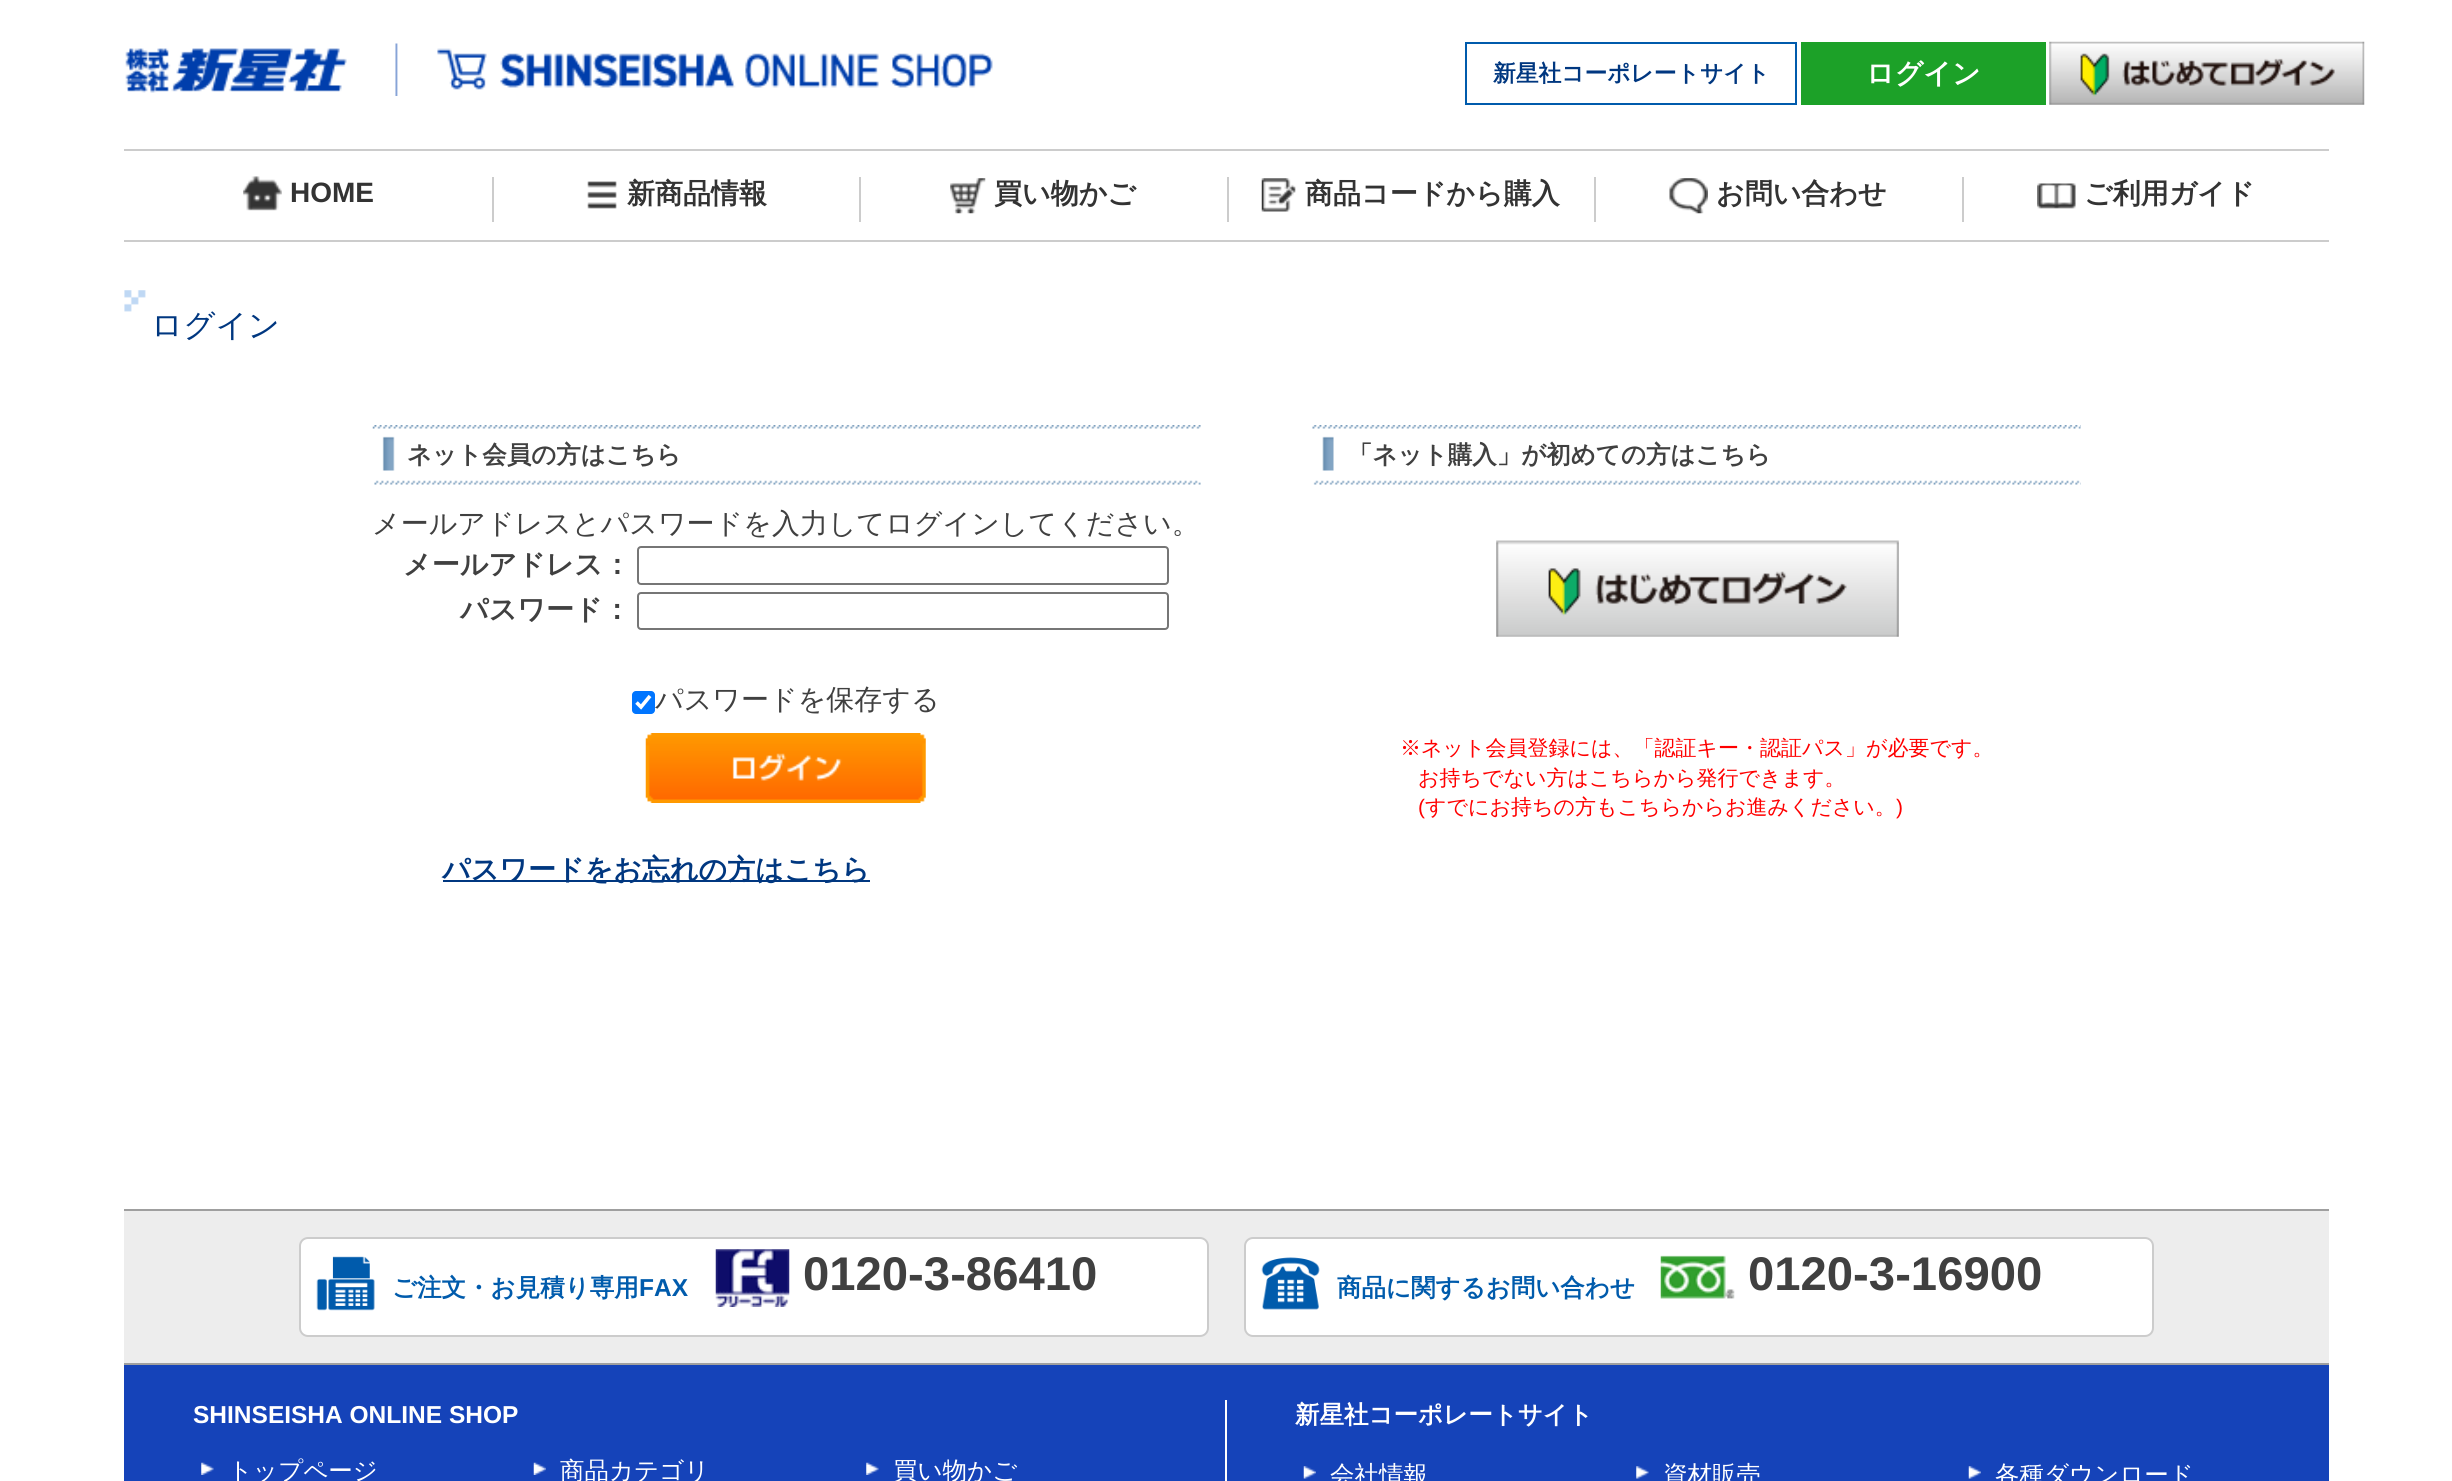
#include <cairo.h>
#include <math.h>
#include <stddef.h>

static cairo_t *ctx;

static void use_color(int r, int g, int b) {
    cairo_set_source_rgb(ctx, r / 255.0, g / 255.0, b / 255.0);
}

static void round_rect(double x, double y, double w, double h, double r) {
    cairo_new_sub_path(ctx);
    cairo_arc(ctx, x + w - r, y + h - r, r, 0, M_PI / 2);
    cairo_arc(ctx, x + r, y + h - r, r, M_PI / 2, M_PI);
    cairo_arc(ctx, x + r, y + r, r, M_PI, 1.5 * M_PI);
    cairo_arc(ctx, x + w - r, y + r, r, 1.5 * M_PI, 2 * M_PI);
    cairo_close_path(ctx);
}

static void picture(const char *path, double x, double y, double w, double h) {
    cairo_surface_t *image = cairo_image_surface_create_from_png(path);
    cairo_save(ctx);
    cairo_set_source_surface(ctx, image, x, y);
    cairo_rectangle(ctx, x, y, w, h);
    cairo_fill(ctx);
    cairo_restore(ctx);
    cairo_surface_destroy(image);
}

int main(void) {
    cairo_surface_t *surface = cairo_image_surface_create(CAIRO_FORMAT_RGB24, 2452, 1481);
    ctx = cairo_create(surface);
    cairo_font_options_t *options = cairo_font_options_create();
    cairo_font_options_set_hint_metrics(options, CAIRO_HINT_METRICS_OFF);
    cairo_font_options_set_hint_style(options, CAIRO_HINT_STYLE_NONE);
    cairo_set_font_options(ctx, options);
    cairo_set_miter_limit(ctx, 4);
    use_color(255, 255, 255);
    cairo_paint(ctx);
    picture("img1.png", 125, 43, 868, 53);
    cairo_rectangle(ctx, 1466, 43, 330, 61);
    use_color(0, 91, 172);
    cairo_stroke(ctx);
    cairo_select_font_face(ctx, "WenQuanYi Zen Hei", CAIRO_FONT_SLANT_NORMAL, CAIRO_FONT_WEIGHT_BOLD);
    cairo_set_font_size(ctx, 22.75);
    use_color(0, 55, 128);
    cairo_move_to(ctx, 1493, 81);
    cairo_show_text(ctx, "新星社コーポレートサイト");
    use_color(28, 161, 40);
    cairo_rectangle(ctx, 1801, 42, 245, 63);
    cairo_fill(ctx);
    cairo_set_font_size(ctx, 28);
    use_color(255, 255, 255);
    cairo_move_to(ctx, 1866, 83);
    cairo_show_text(ctx, "ログイン");
    picture("img2.png", 2049, 41, 316, 64);
    use_color(204, 204, 204);
    cairo_rectangle(ctx, 124, 149, 2205, 2);
    cairo_fill(ctx);
    cairo_rectangle(ctx, 124, 240, 2205, 2);
    cairo_fill(ctx);
    cairo_rectangle(ctx, 492, 177, 2, 45);
    cairo_fill(ctx);
    picture("img3.png", 243, 176, 39, 35);
    cairo_select_font_face(ctx, "Liberation Sans", CAIRO_FONT_SLANT_NORMAL, CAIRO_FONT_WEIGHT_BOLD);
    use_color(51, 51, 51);
    cairo_move_to(ctx, 290, 202);
    cairo_show_text(ctx, "HOME");
    use_color(204, 204, 204);
    cairo_rectangle(ctx, 859, 177, 2, 45);
    cairo_fill(ctx);
    picture("img4.png", 587, 181, 30, 28);
    cairo_select_font_face(ctx, "WenQuanYi Zen Hei", CAIRO_FONT_SLANT_NORMAL, CAIRO_FONT_WEIGHT_BOLD);
    use_color(51, 51, 51);
    cairo_move_to(ctx, 627, 203);
    cairo_show_text(ctx, "新商品情報");
    use_color(204, 204, 204);
    cairo_rectangle(ctx, 1227, 177, 2, 45);
    cairo_fill(ctx);
    picture("img5.png", 950, 178, 36, 36);
    use_color(51, 51, 51);
    cairo_move_to(ctx, 994, 203);
    cairo_show_text(ctx, "買い物かご");
    use_color(204, 204, 204);
    cairo_rectangle(ctx, 1594, 177, 2, 45);
    cairo_fill(ctx);
    picture("img6.png", 1261, 178, 35, 34);
    use_color(51, 51, 51);
    cairo_move_to(ctx, 1305, 203);
    cairo_show_text(ctx, "商品コードから購入");
    use_color(204, 204, 204);
    cairo_rectangle(ctx, 1962, 177, 2, 45);
    cairo_fill(ctx);
    picture("img7.png", 1669, 178, 39, 36);
    use_color(51, 51, 51);
    cairo_move_to(ctx, 1716, 203);
    cairo_show_text(ctx, "お問い合わせ");
    picture("img8.png", 2037, 183, 39, 26);
    cairo_move_to(ctx, 2084, 203);
    cairo_show_text(ctx, "ご利用ガイド");
    picture("img9.png", 124, 290, 22, 22);
    cairo_select_font_face(ctx, "WenQuanYi Zen Hei Medium", CAIRO_FONT_SLANT_NORMAL, CAIRO_FONT_WEIGHT_NORMAL);
    cairo_set_font_size(ctx, 31.5);
    use_color(0, 55, 128);
    cairo_move_to(ctx, 151, 336);
    cairo_show_text(ctx, "ログイン");
    picture("img10.png", 372, 425, 829, 60);
    cairo_select_font_face(ctx, "WenQuanYi Zen Hei", CAIRO_FONT_SLANT_NORMAL, CAIRO_FONT_WEIGHT_BOLD);
    cairo_set_font_size(ctx, 24.5);
    use_color(64, 64, 64);
    cairo_move_to(ctx, 407, 463);
    cairo_show_text(ctx, "ネット会員の方はこちら");
    cairo_select_font_face(ctx, "WenQuanYi Zen Hei Medium", CAIRO_FONT_SLANT_NORMAL, CAIRO_FONT_WEIGHT_NORMAL);
    cairo_set_font_size(ctx, 28);
    cairo_move_to(ctx, 372, 533);
    cairo_show_text(ctx, "メールアドレスとパスワードを入力してログインしてください。");
    cairo_select_font_face(ctx, "WenQuanYi Zen Hei", CAIRO_FONT_SLANT_NORMAL, CAIRO_FONT_WEIGHT_BOLD);
    cairo_move_to(ctx, 403, 574);
    cairo_show_text(ctx, "メールアドレス：");
    round_rect(638, 547, 530, 37, 3);
    use_color(118, 118, 118);
    cairo_stroke(ctx);
    use_color(64, 64, 64);
    cairo_move_to(ctx, 460, 619);
    cairo_show_text(ctx, "パスワード：");
    round_rect(638, 593, 530, 36, 3);
    use_color(118, 118, 118);
    cairo_stroke(ctx);
    use_color(0, 117, 255);
    round_rect(632, 691, 23, 23, 4);
    cairo_fill(ctx);
    cairo_new_path(ctx);
    cairo_move_to(ctx, 636.5, 702.5);
    cairo_line_to(ctx, 641, 707);
    cairo_line_to(ctx, 650, 696);
    use_color(255, 255, 255);
    cairo_set_line_width(ctx, 3.6);
    cairo_stroke(ctx);
    cairo_select_font_face(ctx, "WenQuanYi Zen Hei Medium", CAIRO_FONT_SLANT_NORMAL, CAIRO_FONT_WEIGHT_NORMAL);
    use_color(64, 64, 64);
    cairo_move_to(ctx, 655, 709);
    cairo_show_text(ctx, "パスワードを保存する");
    picture("img11.png", 645, 733, 281, 70);
    use_color(0, 55, 128);
    cairo_rectangle(ctx, 443, 880, 427, 2);
    cairo_fill(ctx);
    cairo_select_font_face(ctx, "WenQuanYi Zen Hei", CAIRO_FONT_SLANT_NORMAL, CAIRO_FONT_WEIGHT_BOLD);
    cairo_move_to(ctx, 442, 879);
    cairo_show_text(ctx, "パスワードをお忘れの方はこちら");
    picture("img12.png", 1312, 425, 769, 60);
    cairo_set_font_size(ctx, 24.5);
    use_color(64, 64, 64);
    cairo_move_to(ctx, 1348, 463);
    cairo_show_text(ctx, "「ネット購入」が初めての方はこちら");
    picture("img13.png", 1496, 540, 403, 97);
    cairo_select_font_face(ctx, "WenQuanYi Zen Hei Medium", CAIRO_FONT_SLANT_NORMAL, CAIRO_FONT_WEIGHT_NORMAL);
    cairo_set_font_size(ctx, 21);
    use_color(255, 0, 0);
    cairo_move_to(ctx, 1400, 755);
    cairo_show_text(ctx, "※ネット会員登録には、「認証キー・認証パス」が必要です。");
    cairo_move_to(ctx, 1418, 785);
    cairo_show_text(ctx, "お持ちでない方はこちらから発行できます。");
    cairo_select_font_face(ctx, "Liberation Sans", CAIRO_FONT_SLANT_NORMAL, CAIRO_FONT_WEIGHT_NORMAL);
    cairo_move_to(ctx, 1418, 814);
    cairo_show_text(ctx, "(");
    cairo_select_font_face(ctx, "WenQuanYi Zen Hei Medium", CAIRO_FONT_SLANT_NORMAL, CAIRO_FONT_WEIGHT_NORMAL);
    cairo_move_to(ctx, 1425, 814);
    cairo_show_text(ctx, "すでにお持ちの方もこちらからお進みください。");
    cairo_select_font_face(ctx, "Liberation Sans", CAIRO_FONT_SLANT_NORMAL, CAIRO_FONT_WEIGHT_NORMAL);
    cairo_move_to(ctx, 1896, 814);
    cairo_show_text(ctx, ")");
    use_color(237, 237, 237);
    cairo_rectangle(ctx, 124, 1211, 2205, 152);
    cairo_fill(ctx);
    use_color(159, 159, 159);
    cairo_rectangle(ctx, 124, 1209, 2205, 2);
    cairo_fill(ctx);
    cairo_rectangle(ctx, 124, 1363, 2205, 2);
    cairo_fill(ctx);
    use_color(255, 255, 255);
    round_rect(300, 1238, 908, 98, 8);
    cairo_fill_preserve(ctx);
    use_color(204, 204, 204);
    cairo_set_line_width(ctx, 2);
    cairo_stroke(ctx);
    picture("img14.png", 316, 1256, 59, 55);
    cairo_select_font_face(ctx, "WenQuanYi Zen Hei", CAIRO_FONT_SLANT_NORMAL, CAIRO_FONT_WEIGHT_BOLD);
    cairo_set_font_size(ctx, 24.5);
    use_color(0, 91, 172);
    cairo_move_to(ctx, 392, 1296);
    cairo_show_text(ctx, "ご注文・お見積り専用");
    cairo_select_font_face(ctx, "Liberation Sans", CAIRO_FONT_SLANT_NORMAL, CAIRO_FONT_WEIGHT_BOLD);
    cairo_move_to(ctx, 639, 1296);
    cairo_show_text(ctx, "FAX");
    picture("img15.png", 715, 1249, 75, 58);
    cairo_set_font_size(ctx, 47.25);
    use_color(64, 64, 64);
    cairo_move_to(ctx, 803, 1290);
    cairo_show_text(ctx, "0120-3-86410");
    use_color(255, 255, 255);
    round_rect(1245, 1238, 908, 98, 8);
    cairo_fill_preserve(ctx);
    use_color(204, 204, 204);
    cairo_stroke(ctx);
    picture("img16.png", 1261, 1257, 59, 53);
    cairo_select_font_face(ctx, "WenQuanYi Zen Hei", CAIRO_FONT_SLANT_NORMAL, CAIRO_FONT_WEIGHT_BOLD);
    cairo_set_font_size(ctx, 24.5);
    use_color(0, 91, 172);
    cairo_move_to(ctx, 1337, 1296);
    cairo_show_text(ctx, "商品に関するお問い合わせ");
    picture("img17.png", 1660, 1255, 75, 44);
    cairo_select_font_face(ctx, "Liberation Sans", CAIRO_FONT_SLANT_NORMAL, CAIRO_FONT_WEIGHT_BOLD);
    cairo_set_font_size(ctx, 47.25);
    use_color(64, 64, 64);
    cairo_move_to(ctx, 1748, 1290);
    cairo_show_text(ctx, "0120-3-16900");
    use_color(21, 67, 185);
    cairo_rectangle(ctx, 124, 1365, 2205, 116);
    cairo_fill(ctx);
    cairo_set_font_size(ctx, 24.5);
    use_color(255, 255, 255);
    cairo_move_to(ctx, 193, 1423);
    cairo_show_text(ctx, "SHINSEISHA ONLINE SHOP");
    picture("img18.png", 201, 1462, 13, 13);
    cairo_select_font_face(ctx, "WenQuanYi Zen Hei Medium", CAIRO_FONT_SLANT_NORMAL, CAIRO_FONT_WEIGHT_NORMAL);
    cairo_move_to(ctx, 228, 1479);
    cairo_show_text(ctx, "トップページ");
    picture("img19.png", 533, 1462, 13, 13);
    cairo_move_to(ctx, 560, 1479);
    cairo_show_text(ctx, "商品カテゴリ");
    picture("img18.png", 866, 1462, 13, 13);
    cairo_move_to(ctx, 893, 1479);
    cairo_show_text(ctx, "買い物かご");
    cairo_rectangle(ctx, 1225, 1400, 2, 81);
    cairo_fill(ctx);
    cairo_select_font_face(ctx, "WenQuanYi Zen Hei", CAIRO_FONT_SLANT_NORMAL, CAIRO_FONT_WEIGHT_BOLD);
    cairo_move_to(ctx, 1295, 1423);
    cairo_show_text(ctx, "新星社コーポレートサイト");
    picture("img20.png", 1303, 1466, 13, 13);
    cairo_select_font_face(ctx, "WenQuanYi Zen Hei Medium", CAIRO_FONT_SLANT_NORMAL, CAIRO_FONT_WEIGHT_NORMAL);
    cairo_move_to(ctx, 1330, 1483);
    cairo_show_text(ctx, "会社情報");
    picture("img21.png", 1636, 1466, 13, 13);
    cairo_move_to(ctx, 1663, 1483);
    cairo_show_text(ctx, "資材販売");
    picture("img22.png", 1968, 1466, 13, 13);
    cairo_move_to(ctx, 1995, 1483);
    cairo_show_text(ctx, "各種ダウンロード");
    cairo_surface_write_to_png(surface, "result.png");
    cairo_font_options_destroy(options);
    cairo_destroy(ctx);
    cairo_surface_destroy(surface);
    return 0;
}
